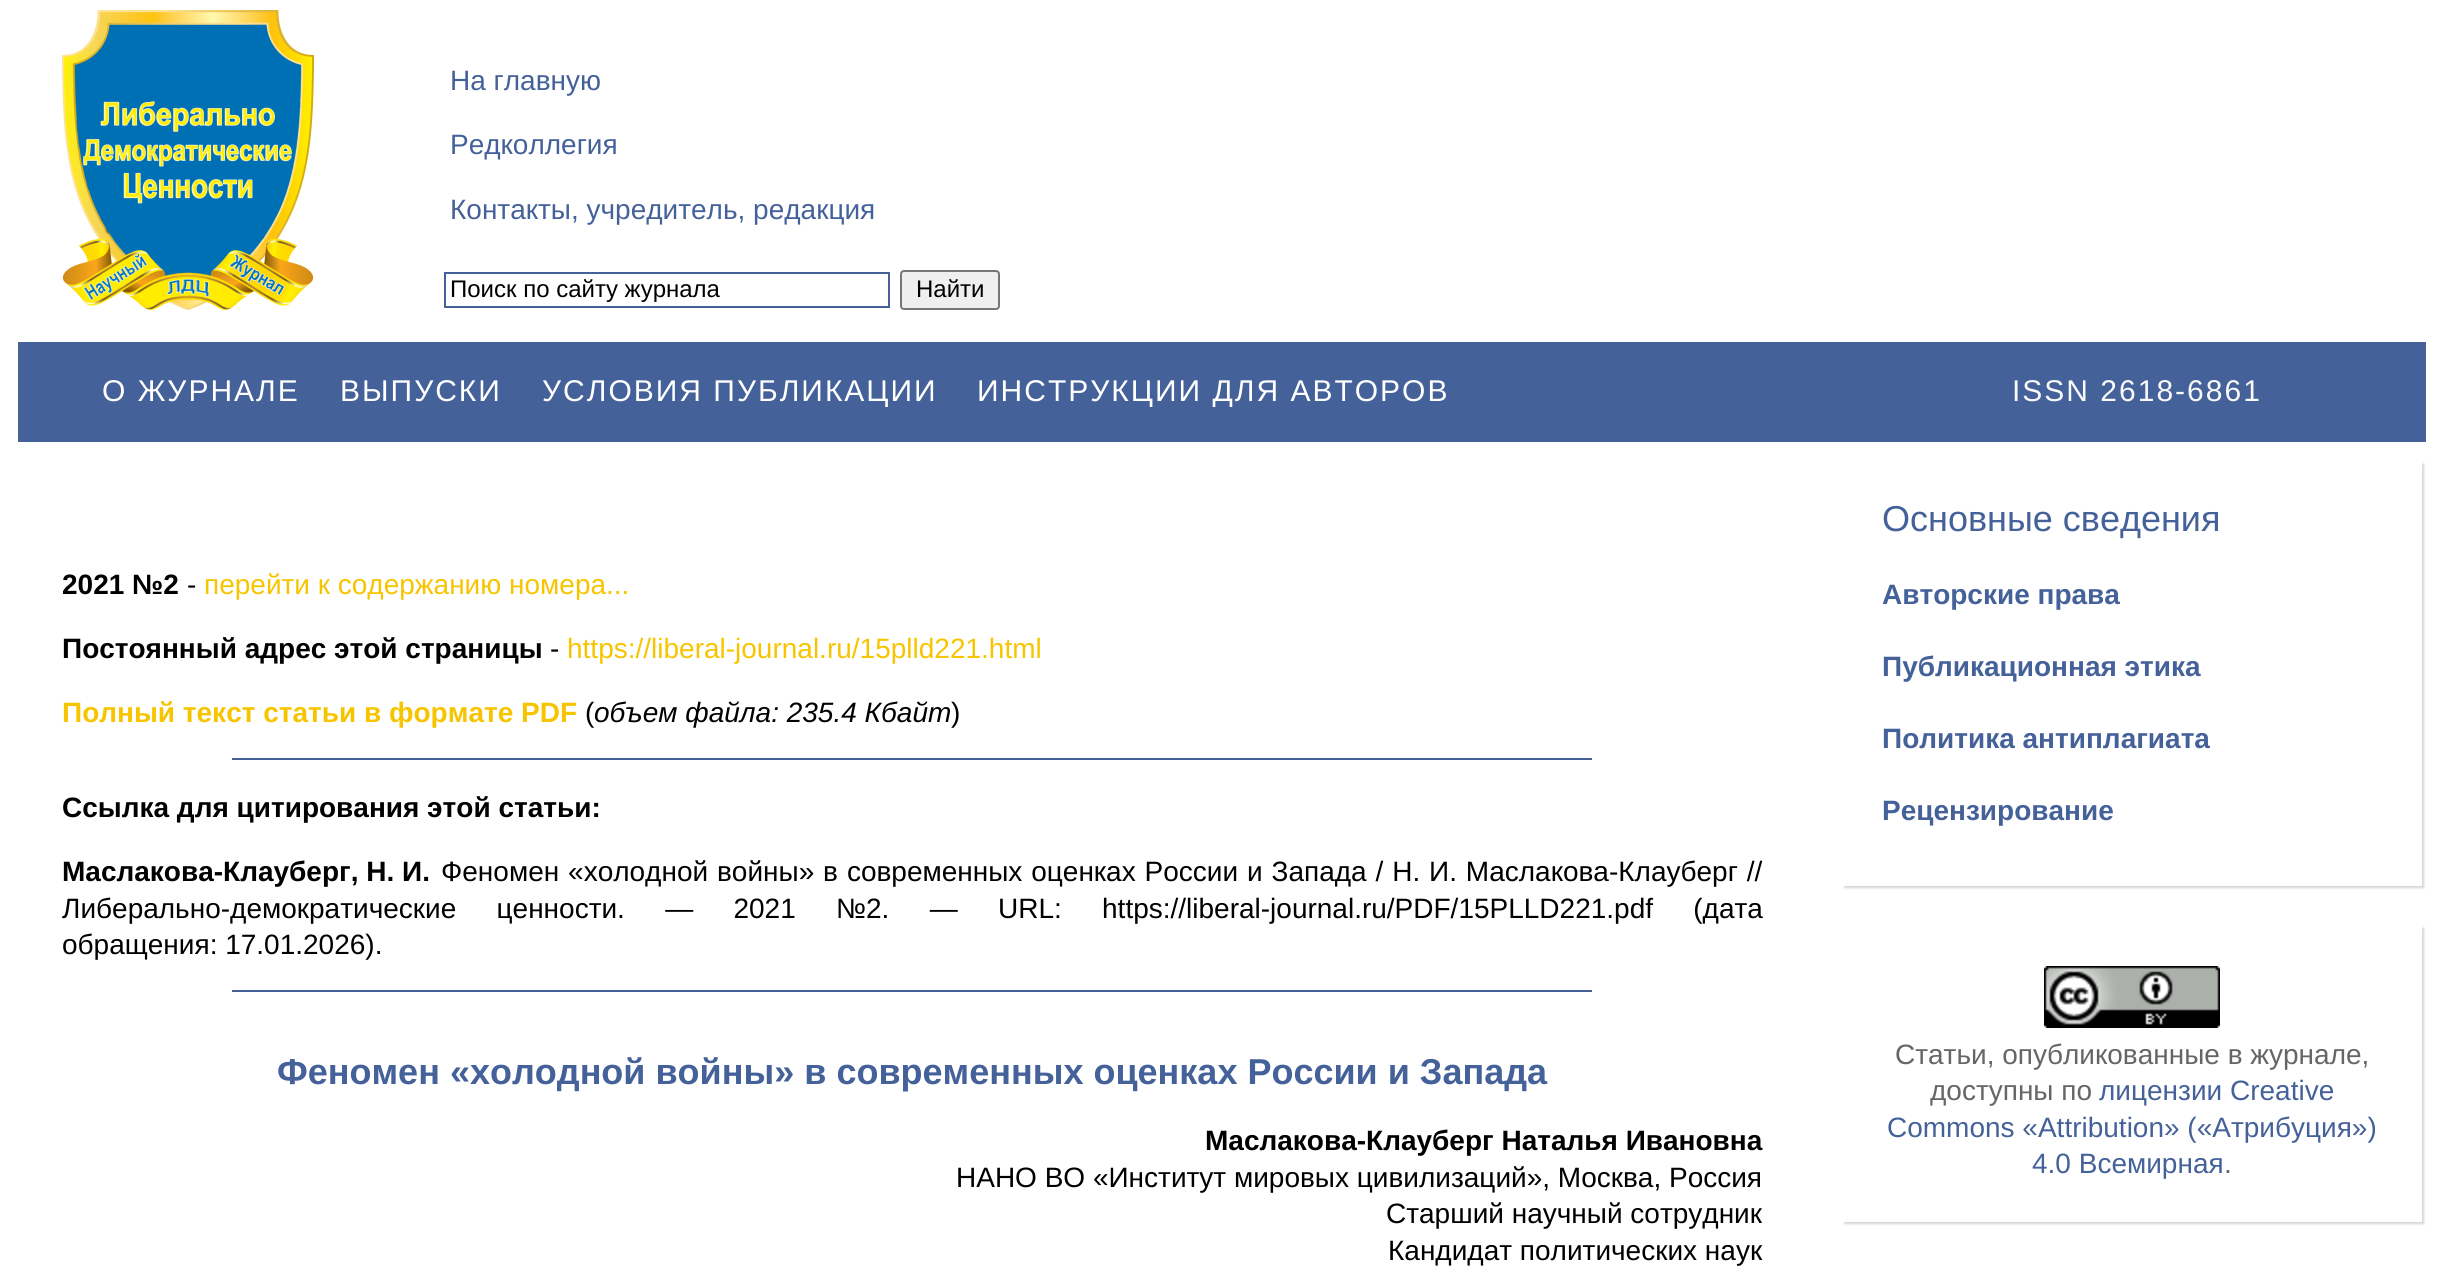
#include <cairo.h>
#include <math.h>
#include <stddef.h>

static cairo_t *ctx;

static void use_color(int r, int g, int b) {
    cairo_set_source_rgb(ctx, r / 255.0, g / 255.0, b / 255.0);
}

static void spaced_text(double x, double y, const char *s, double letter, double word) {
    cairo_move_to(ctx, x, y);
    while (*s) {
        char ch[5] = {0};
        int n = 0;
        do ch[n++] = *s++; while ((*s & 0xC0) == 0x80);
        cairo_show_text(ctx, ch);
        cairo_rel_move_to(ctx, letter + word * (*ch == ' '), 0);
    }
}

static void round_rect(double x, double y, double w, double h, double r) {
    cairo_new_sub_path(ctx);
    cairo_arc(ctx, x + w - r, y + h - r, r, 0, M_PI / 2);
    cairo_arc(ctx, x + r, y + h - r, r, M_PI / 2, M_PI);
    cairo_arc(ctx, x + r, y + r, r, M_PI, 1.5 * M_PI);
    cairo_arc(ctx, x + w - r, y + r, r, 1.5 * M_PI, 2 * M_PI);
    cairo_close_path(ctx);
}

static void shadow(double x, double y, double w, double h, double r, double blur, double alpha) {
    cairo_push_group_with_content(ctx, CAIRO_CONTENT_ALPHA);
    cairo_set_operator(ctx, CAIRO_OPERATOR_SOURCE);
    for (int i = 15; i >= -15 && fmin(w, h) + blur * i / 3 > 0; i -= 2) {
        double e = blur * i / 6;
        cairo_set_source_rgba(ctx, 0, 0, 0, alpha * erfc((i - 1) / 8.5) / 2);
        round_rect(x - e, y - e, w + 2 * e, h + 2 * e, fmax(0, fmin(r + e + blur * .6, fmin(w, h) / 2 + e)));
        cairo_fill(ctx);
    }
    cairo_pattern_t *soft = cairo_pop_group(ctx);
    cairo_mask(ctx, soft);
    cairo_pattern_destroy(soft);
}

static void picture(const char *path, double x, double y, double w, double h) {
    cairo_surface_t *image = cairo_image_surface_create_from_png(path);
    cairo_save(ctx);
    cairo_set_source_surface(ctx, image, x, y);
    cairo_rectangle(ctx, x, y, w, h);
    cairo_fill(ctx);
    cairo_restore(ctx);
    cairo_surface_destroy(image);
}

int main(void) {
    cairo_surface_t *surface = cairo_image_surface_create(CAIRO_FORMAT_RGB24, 2444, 1287);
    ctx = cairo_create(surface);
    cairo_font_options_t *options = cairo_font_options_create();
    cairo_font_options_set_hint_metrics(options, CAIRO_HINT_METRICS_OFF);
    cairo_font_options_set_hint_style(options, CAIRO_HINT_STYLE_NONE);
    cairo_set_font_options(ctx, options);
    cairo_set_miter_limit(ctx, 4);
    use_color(255, 255, 255);
    cairo_paint(ctx);
    picture("img1.png", 62, 10, 252, 300);
    cairo_select_font_face(ctx, "Liberation Sans", CAIRO_FONT_SLANT_NORMAL, CAIRO_FONT_WEIGHT_NORMAL);
    cairo_set_font_size(ctx, 28);
    use_color(69, 97, 154);
    cairo_move_to(ctx, 450, 90);
    cairo_show_text(ctx, "На главную");
    cairo_move_to(ctx, 450, 154);
    cairo_show_text(ctx, "Редколлегия");
    cairo_move_to(ctx, 450, 219);
    cairo_show_text(ctx, "Контакты, учредитель, редакция");
    cairo_rectangle(ctx, 445, 273, 444, 34);
    cairo_stroke(ctx);
    cairo_set_font_size(ctx, 24);
    use_color(0, 0, 0);
    cairo_move_to(ctx, 450, 297);
    cairo_show_text(ctx, "Поиск по сайту журнала");
    use_color(239, 239, 239);
    round_rect(901, 271, 98, 38, 3);
    cairo_fill_preserve(ctx);
    use_color(118, 118, 118);
    cairo_stroke(ctx);
    use_color(0, 0, 0);
    cairo_move_to(ctx, 916, 297);
    cairo_show_text(ctx, "Найти");
    use_color(69, 97, 154);
    cairo_rectangle(ctx, 18, 342, 2408, 100);
    cairo_fill(ctx);
    cairo_set_font_size(ctx, 30);
    use_color(255, 255, 255);
    spaced_text(102, 401, "О ЖУРНАЛЕ", 2, 0);
    spaced_text(340, 401, "ВЫПУСКИ", 2, 0);
    spaced_text(542, 401, "УСЛОВИЯ ПУБЛИКАЦИИ", 2, 0);
    spaced_text(977, 401, "ИНСТРУКЦИИ ДЛЯ АВТОРОВ", 2, 0);
    use_color(249, 249, 249);
    spaced_text(2012, 401, "ISSN 2618-6861", 2, 0);
    cairo_select_font_face(ctx, "Liberation Sans", CAIRO_FONT_SLANT_NORMAL, CAIRO_FONT_WEIGHT_BOLD);
    cairo_set_font_size(ctx, 28);
    use_color(0, 0, 0);
    cairo_move_to(ctx, 62, 594);
    cairo_show_text(ctx, "2021 №2");
    cairo_select_font_face(ctx, "Liberation Sans", CAIRO_FONT_SLANT_NORMAL, CAIRO_FONT_WEIGHT_NORMAL);
    cairo_move_to(ctx, 187, 594);
    cairo_show_text(ctx, "-");
    use_color(247, 197, 0);
    cairo_move_to(ctx, 204, 594);
    cairo_show_text(ctx, "перейти к содержанию номера...");
    cairo_select_font_face(ctx, "Liberation Sans", CAIRO_FONT_SLANT_NORMAL, CAIRO_FONT_WEIGHT_BOLD);
    use_color(0, 0, 0);
    cairo_move_to(ctx, 62, 658);
    cairo_show_text(ctx, "Постоянный адрес этой страницы");
    cairo_select_font_face(ctx, "Liberation Sans", CAIRO_FONT_SLANT_NORMAL, CAIRO_FONT_WEIGHT_NORMAL);
    cairo_move_to(ctx, 550, 658);
    cairo_show_text(ctx, "-");
    use_color(247, 197, 0);
    cairo_move_to(ctx, 567, 658);
    cairo_show_text(ctx, "https://liberal-journal.ru/15plld221.html");
    cairo_select_font_face(ctx, "Liberation Sans", CAIRO_FONT_SLANT_NORMAL, CAIRO_FONT_WEIGHT_BOLD);
    cairo_move_to(ctx, 62, 722);
    cairo_show_text(ctx, "Полный текст статьи в формате PDF");
    cairo_select_font_face(ctx, "Liberation Sans", CAIRO_FONT_SLANT_NORMAL, CAIRO_FONT_WEIGHT_NORMAL);
    use_color(0, 0, 0);
    cairo_move_to(ctx, 585, 722);
    cairo_show_text(ctx, "(");
    cairo_select_font_face(ctx, "Liberation Sans", CAIRO_FONT_SLANT_ITALIC, CAIRO_FONT_WEIGHT_NORMAL);
    cairo_move_to(ctx, 594, 722);
    cairo_show_text(ctx, "объем файла: 235.4 Кбайт");
    cairo_select_font_face(ctx, "Liberation Sans", CAIRO_FONT_SLANT_NORMAL, CAIRO_FONT_WEIGHT_NORMAL);
    cairo_move_to(ctx, 951, 722);
    cairo_show_text(ctx, ")");
    use_color(69, 97, 154);
    cairo_rectangle(ctx, 232, 758, 1360, 2);
    cairo_fill(ctx);
    cairo_select_font_face(ctx, "Liberation Sans", CAIRO_FONT_SLANT_NORMAL, CAIRO_FONT_WEIGHT_BOLD);
    use_color(0, 0, 0);
    cairo_move_to(ctx, 62, 817);
    cairo_show_text(ctx, "Ссылка для цитирования этой статьи:");
    cairo_move_to(ctx, 62, 881);
    cairo_show_text(ctx, "Маслакова-Клауберг, Н. И.");
    cairo_select_font_face(ctx, "Liberation Sans", CAIRO_FONT_SLANT_NORMAL, CAIRO_FONT_WEIGHT_NORMAL);
    spaced_text(441, 881, "Феномен «холодной войны» в современных оценках России и Запада / Н. И. Маслакова-Клауберг //", 0, 1.1);
    spaced_text(62, 918, "Либерально-демократические ценности. — 2021 №2. — URL: https://liberal-journal.ru/PDF/15PLLD221.pdf (дата", 0, 32.5);
    cairo_move_to(ctx, 62, 954);
    cairo_show_text(ctx, "обращения: 17.01.2026).");
    use_color(69, 97, 154);
    cairo_rectangle(ctx, 232, 990, 1360, 2);
    cairo_fill(ctx);
    cairo_select_font_face(ctx, "Liberation Sans", CAIRO_FONT_SLANT_NORMAL, CAIRO_FONT_WEIGHT_BOLD);
    cairo_set_font_size(ctx, 36);
    cairo_move_to(ctx, 277, 1084);
    cairo_show_text(ctx, "Феномен «холодной войны» в современных оценках России и Запада");
    cairo_set_font_size(ctx, 28);
    use_color(0, 0, 0);
    cairo_move_to(ctx, 1205, 1150);
    cairo_show_text(ctx, "Маслакова-Клауберг Наталья Ивановна");
    cairo_select_font_face(ctx, "Liberation Sans", CAIRO_FONT_SLANT_NORMAL, CAIRO_FONT_WEIGHT_NORMAL);
    cairo_move_to(ctx, 956, 1187);
    cairo_show_text(ctx, "НАНО ВО «Институт мировых цивилизаций», Москва, Россия");
    cairo_move_to(ctx, 1386, 1223);
    cairo_show_text(ctx, "Старший научный сотрудник");
    cairo_move_to(ctx, 1388, 1260);
    cairo_show_text(ctx, "Кандидат политических наук");
    cairo_save(ctx);
    cairo_set_fill_rule(ctx, CAIRO_FILL_RULE_EVEN_ODD);
    cairo_new_path(ctx);
    cairo_move_to(ctx, 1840, 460);
    cairo_line_to(ctx, 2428, 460);
    cairo_line_to(ctx, 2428, 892);
    cairo_line_to(ctx, 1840, 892);
    cairo_close_path(ctx);
    cairo_move_to(ctx, 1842, 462);
    cairo_line_to(ctx, 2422, 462);
    cairo_line_to(ctx, 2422, 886);
    cairo_line_to(ctx, 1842, 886);
    cairo_close_path(ctx);
    cairo_clip(ctx);
    use_color(214, 214, 214);
    shadow(1844, 464, 580, 424, 0, 1, 1);
    cairo_restore(ctx);
    cairo_set_font_size(ctx, 36);
    use_color(69, 97, 154);
    cairo_move_to(ctx, 1882, 531);
    cairo_show_text(ctx, "Основные сведения");
    cairo_select_font_face(ctx, "Liberation Sans", CAIRO_FONT_SLANT_NORMAL, CAIRO_FONT_WEIGHT_BOLD);
    cairo_set_font_size(ctx, 28);
    cairo_move_to(ctx, 1882, 604);
    cairo_show_text(ctx, "Авторские права");
    cairo_move_to(ctx, 1882, 676);
    cairo_show_text(ctx, "Публикационная этика");
    cairo_move_to(ctx, 1882, 748);
    cairo_show_text(ctx, "Политика антиплагиата");
    cairo_move_to(ctx, 1882, 820);
    cairo_show_text(ctx, "Рецензирование");
    cairo_save(ctx);
    cairo_set_fill_rule(ctx, CAIRO_FILL_RULE_EVEN_ODD);
    cairo_new_path(ctx);
    cairo_move_to(ctx, 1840, 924);
    cairo_line_to(ctx, 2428, 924);
    cairo_line_to(ctx, 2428, 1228);
    cairo_line_to(ctx, 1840, 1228);
    cairo_close_path(ctx);
    cairo_move_to(ctx, 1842, 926);
    cairo_line_to(ctx, 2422, 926);
    cairo_line_to(ctx, 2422, 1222);
    cairo_line_to(ctx, 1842, 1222);
    cairo_close_path(ctx);
    cairo_clip(ctx);
    use_color(214, 214, 214);
    shadow(1844, 928, 580, 296, 0, 1, 1);
    cairo_restore(ctx);
    picture("img2.png", 2044, 966, 176, 62);
    cairo_select_font_face(ctx, "Liberation Sans", CAIRO_FONT_SLANT_NORMAL, CAIRO_FONT_WEIGHT_NORMAL);
    use_color(102, 102, 102);
    cairo_move_to(ctx, 1895, 1064);
    cairo_show_text(ctx, "Статьи, опубликованные в журнале,");
    cairo_move_to(ctx, 1930, 1100);
    cairo_show_text(ctx, "доступны по");
    use_color(69, 97, 154);
    cairo_move_to(ctx, 2099, 1100);
    cairo_show_text(ctx, "лицензии Creative");
    cairo_move_to(ctx, 1887, 1137);
    cairo_show_text(ctx, "Commons «Attribution» («Атрибуция»)");
    cairo_move_to(ctx, 2032, 1173);
    cairo_show_text(ctx, "4.0 Всемирная");
    use_color(102, 102, 102);
    cairo_move_to(ctx, 2224, 1173);
    cairo_show_text(ctx, ".");
    cairo_surface_write_to_png(surface, "result.png");
    cairo_font_options_destroy(options);
    cairo_destroy(ctx);
    cairo_surface_destroy(surface);
    return 0;
}
